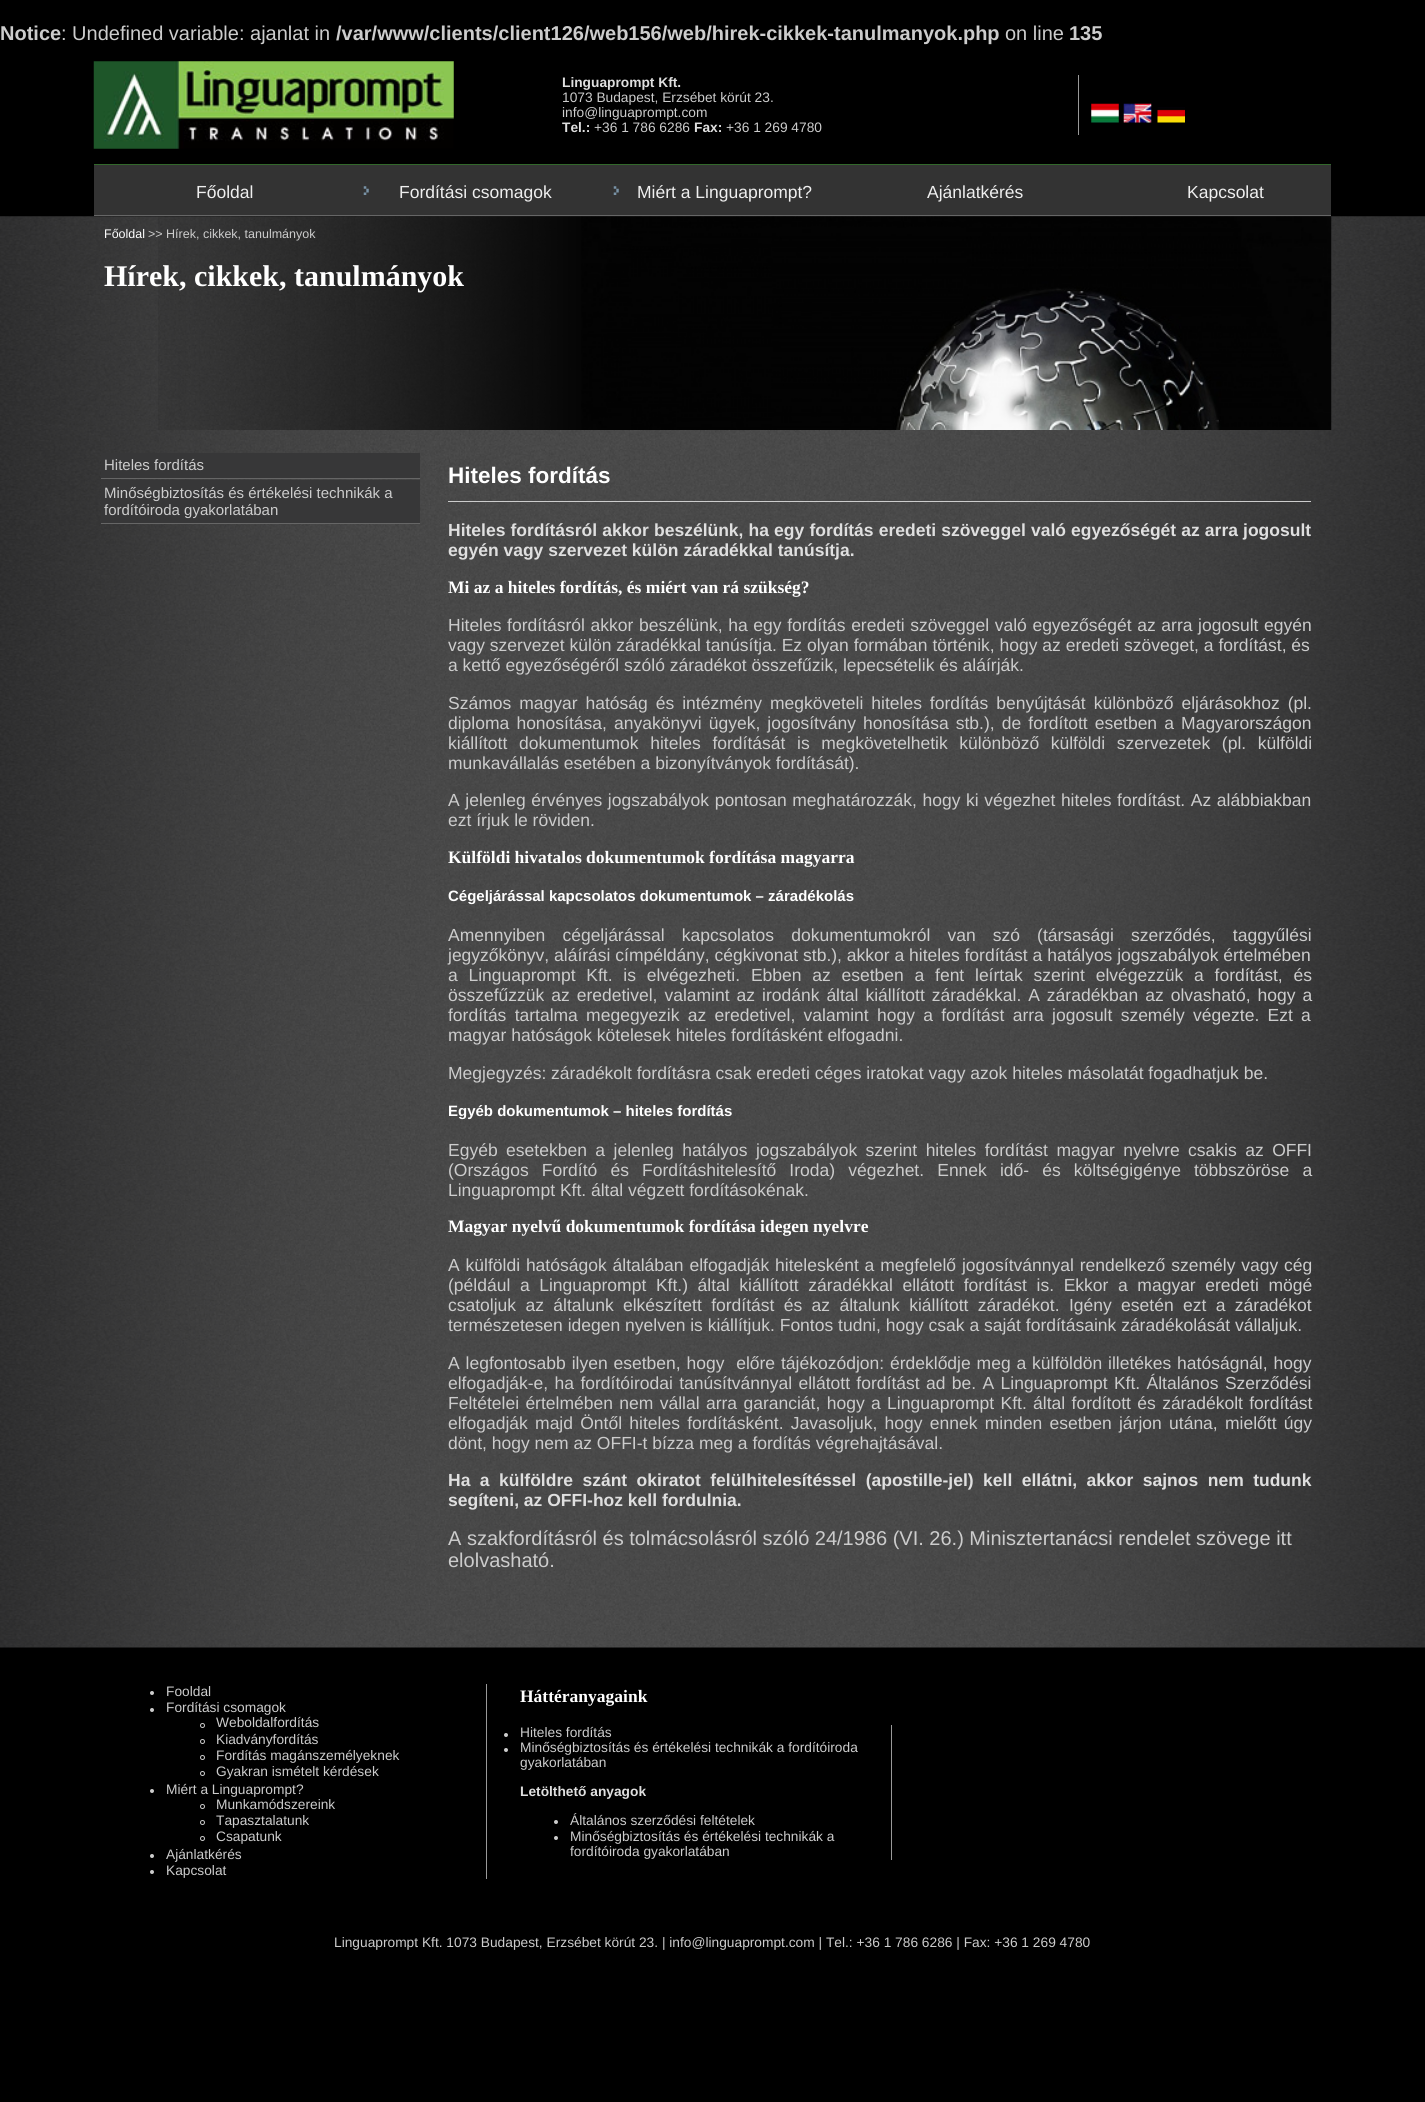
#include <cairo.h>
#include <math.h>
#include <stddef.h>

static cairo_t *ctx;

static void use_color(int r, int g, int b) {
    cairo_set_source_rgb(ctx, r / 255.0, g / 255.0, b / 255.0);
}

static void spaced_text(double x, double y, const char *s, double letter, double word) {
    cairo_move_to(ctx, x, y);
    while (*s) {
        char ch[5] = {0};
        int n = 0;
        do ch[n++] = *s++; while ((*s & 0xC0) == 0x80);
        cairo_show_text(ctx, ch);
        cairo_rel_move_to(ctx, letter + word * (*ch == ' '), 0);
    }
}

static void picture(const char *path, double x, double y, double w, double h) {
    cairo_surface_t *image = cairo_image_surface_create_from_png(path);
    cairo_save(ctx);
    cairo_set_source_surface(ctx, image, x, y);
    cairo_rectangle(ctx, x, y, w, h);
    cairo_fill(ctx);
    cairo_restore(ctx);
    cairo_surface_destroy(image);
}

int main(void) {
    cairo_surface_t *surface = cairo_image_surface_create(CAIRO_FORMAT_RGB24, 1425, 2102);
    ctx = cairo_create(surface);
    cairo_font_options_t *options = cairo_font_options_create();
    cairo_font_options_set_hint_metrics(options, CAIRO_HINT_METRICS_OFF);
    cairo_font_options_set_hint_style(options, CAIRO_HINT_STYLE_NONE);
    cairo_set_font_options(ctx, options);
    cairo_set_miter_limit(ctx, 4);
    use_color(0, 0, 0);
    cairo_paint(ctx);
    cairo_select_font_face(ctx, "Liberation Sans", CAIRO_FONT_SLANT_NORMAL, CAIRO_FONT_WEIGHT_BOLD);
    cairo_set_font_size(ctx, 20);
    use_color(204, 204, 204);
    cairo_move_to(ctx, 0, 40);
    cairo_show_text(ctx, "Notice");
    cairo_select_font_face(ctx, "Liberation Sans", CAIRO_FONT_SLANT_NORMAL, CAIRO_FONT_WEIGHT_NORMAL);
    cairo_move_to(ctx, 61, 40);
    cairo_show_text(ctx, ": Undefined variable: ajanlat in");
    cairo_select_font_face(ctx, "Liberation Sans", CAIRO_FONT_SLANT_NORMAL, CAIRO_FONT_WEIGHT_BOLD);
    cairo_move_to(ctx, 336, 40);
    cairo_show_text(ctx, "/var/www/clients/client126/web156/web/hirek-cikkek-tanulmanyok.php");
    cairo_select_font_face(ctx, "Liberation Sans", CAIRO_FONT_SLANT_NORMAL, CAIRO_FONT_WEIGHT_NORMAL);
    cairo_move_to(ctx, 1005, 40);
    cairo_show_text(ctx, "on line");
    cairo_select_font_face(ctx, "Liberation Sans", CAIRO_FONT_SLANT_NORMAL, CAIRO_FONT_WEIGHT_BOLD);
    cairo_move_to(ctx, 1069, 40);
    cairo_show_text(ctx, "135");
    picture("img1.png", 93, 61, 361, 88);
    use_color(153, 153, 153);
    cairo_rectangle(ctx, 1078, 75, 1, 60);
    cairo_fill(ctx);
    cairo_set_font_size(ctx, 13.75);
    use_color(223, 223, 223);
    cairo_move_to(ctx, 562, 87);
    cairo_show_text(ctx, "Linguaprompt Kft.");
    cairo_select_font_face(ctx, "Liberation Sans", CAIRO_FONT_SLANT_NORMAL, CAIRO_FONT_WEIGHT_NORMAL);
    use_color(204, 204, 204);
    cairo_move_to(ctx, 562, 102);
    cairo_show_text(ctx, "1073 Budapest, Erzsébet körút 23.");
    cairo_move_to(ctx, 562, 117);
    cairo_show_text(ctx, "info@linguaprompt.com");
    cairo_select_font_face(ctx, "Liberation Sans", CAIRO_FONT_SLANT_NORMAL, CAIRO_FONT_WEIGHT_BOLD);
    use_color(223, 223, 223);
    cairo_move_to(ctx, 562, 132);
    cairo_show_text(ctx, "Tel.:");
    cairo_select_font_face(ctx, "Liberation Sans", CAIRO_FONT_SLANT_NORMAL, CAIRO_FONT_WEIGHT_NORMAL);
    use_color(204, 204, 204);
    cairo_move_to(ctx, 594, 132);
    cairo_show_text(ctx, "+36 1 786 6286");
    cairo_select_font_face(ctx, "Liberation Sans", CAIRO_FONT_SLANT_NORMAL, CAIRO_FONT_WEIGHT_BOLD);
    use_color(223, 223, 223);
    cairo_move_to(ctx, 694, 132);
    cairo_show_text(ctx, "Fax:");
    cairo_select_font_face(ctx, "Liberation Sans", CAIRO_FONT_SLANT_NORMAL, CAIRO_FONT_WEIGHT_NORMAL);
    use_color(204, 204, 204);
    cairo_move_to(ctx, 726, 132);
    cairo_show_text(ctx, "+36 1 269 4780");
    picture("img2.png", 1091, 103, 28, 20);
    picture("img3.png", 1123, 103, 29, 20);
    picture("img4.png", 1157, 107, 28, 16);
    use_color(51, 51, 51);
    cairo_rectangle(ctx, 94, 165, 1237, 50);
    cairo_fill(ctx);
    use_color(50, 104, 43);
    cairo_rectangle(ctx, 94, 164, 1237, 1);
    cairo_fill(ctx);
    use_color(102, 102, 102);
    cairo_rectangle(ctx, 94, 215, 1237, 1);
    cairo_fill(ctx);
    cairo_set_font_size(ctx, 17.5);
    use_color(239, 239, 239);
    cairo_move_to(ctx, 196, 198);
    cairo_show_text(ctx, "Főoldal");
    picture("img5.png", 363, 186, 6, 9);
    cairo_move_to(ctx, 399, 198);
    cairo_show_text(ctx, "Fordítási csomagok");
    picture("img5.png", 613, 186, 6, 9);
    cairo_move_to(ctx, 637, 198);
    cairo_show_text(ctx, "Miért a Linguaprompt?");
    cairo_move_to(ctx, 927, 198);
    cairo_show_text(ctx, "Ajánlatkérés");
    cairo_move_to(ctx, 1187, 198);
    cairo_show_text(ctx, "Kapcsolat");
    picture("img6.png", 0, 216, 1425, 1432);
    picture("img7.png", 158, 216, 1174, 214);
    cairo_set_font_size(ctx, 12.5);
    use_color(255, 255, 255);
    cairo_move_to(ctx, 104, 238);
    cairo_show_text(ctx, "Főoldal");
    use_color(204, 204, 204);
    cairo_move_to(ctx, 148, 238);
    cairo_show_text(ctx, ">> Hírek, cikkek, tanulmányok");
    cairo_select_font_face(ctx, "Liberation Serif", CAIRO_FONT_SLANT_NORMAL, CAIRO_FONT_WEIGHT_BOLD);
    cairo_set_font_size(ctx, 30);
    use_color(255, 255, 255);
    cairo_move_to(ctx, 104, 286);
    cairo_show_text(ctx, "Hírek, cikkek, tanulmányok");
    use_color(55, 55, 56);
    cairo_rectangle(ctx, 101, 453, 319, 25);
    cairo_fill(ctx);
    use_color(102, 102, 102);
    cairo_rectangle(ctx, 101, 478, 319, 1);
    cairo_fill(ctx);
    cairo_select_font_face(ctx, "Liberation Sans", CAIRO_FONT_SLANT_NORMAL, CAIRO_FONT_WEIGHT_NORMAL);
    cairo_set_font_size(ctx, 15);
    use_color(204, 204, 204);
    cairo_move_to(ctx, 104, 470);
    cairo_show_text(ctx, "Hiteles fordítás");
    use_color(55, 55, 56);
    cairo_rectangle(ctx, 101, 480, 319, 43);
    cairo_fill(ctx);
    use_color(102, 102, 102);
    cairo_rectangle(ctx, 101, 523, 319, 1);
    cairo_fill(ctx);
    use_color(204, 204, 204);
    cairo_move_to(ctx, 104, 498);
    cairo_show_text(ctx, "Minőségbiztosítás és értékelési technikák a");
    cairo_move_to(ctx, 104, 515);
    cairo_show_text(ctx, "fordítóiroda gyakorlatában");
    cairo_rectangle(ctx, 448, 501, 863, 1);
    cairo_fill(ctx);
    cairo_select_font_face(ctx, "Liberation Sans", CAIRO_FONT_SLANT_NORMAL, CAIRO_FONT_WEIGHT_BOLD);
    cairo_set_font_size(ctx, 22.5);
    use_color(255, 255, 255);
    cairo_move_to(ctx, 448, 483);
    cairo_show_text(ctx, "Hiteles fordítás");
    cairo_set_font_size(ctx, 17.5);
    use_color(223, 223, 223);
    spaced_text(448, 536, "Hiteles fordításról akkor beszélünk, ha egy fordítás eredeti szöveggel való egyezőségét az arra jogosult", 0, 0.25);
    cairo_move_to(ctx, 448, 556);
    cairo_show_text(ctx, "egyén vagy szervezet külön záradékkal tanúsítja.");
    cairo_select_font_face(ctx, "Liberation Serif", CAIRO_FONT_SLANT_NORMAL, CAIRO_FONT_WEIGHT_BOLD);
    use_color(255, 255, 255);
    cairo_move_to(ctx, 448, 593);
    cairo_show_text(ctx, "Mi az a hiteles fordítás, és miért van rá szükség?");
    cairo_select_font_face(ctx, "Liberation Sans", CAIRO_FONT_SLANT_NORMAL, CAIRO_FONT_WEIGHT_NORMAL);
    use_color(204, 204, 204);
    spaced_text(448, 631, "Hiteles fordításról akkor beszélünk, ha egy fordítás eredeti szöveggel való egyezőségét az arra jogosult egyén", 0, 0.75);
    cairo_move_to(ctx, 448, 651);
    cairo_show_text(ctx, "vagy szervezet külön záradékkal tanúsítja. Ez olyan formában történik, hogy az eredeti szöveget, a fordítást, és");
    cairo_move_to(ctx, 448, 671);
    cairo_show_text(ctx, "a kettő egyezőségéről szóló záradékot összefűzik, lepecsételik és aláírják.");
    spaced_text(448, 709, "Számos magyar hatóság és intézmény megköveteli hiteles fordítás benyújtását különböző eljárásokhoz (pl.", 0, 3.1);
    spaced_text(448, 729, "diploma honosítása, anyakönyvi ügyek, jogosítvány honosítása stb.), de fordított esetben a Magyarországon", 0, 2.25);
    spaced_text(448, 749, "kiállított dokumentumok hiteles fordítását is megkövetelhetik különböző külföldi szervezetek (pl. külföldi", 0, 6.75);
    cairo_move_to(ctx, 448, 769);
    cairo_show_text(ctx, "munkavállalás esetében a bizonyítványok fordítását).");
    spaced_text(448, 806, "A jelenleg érvényes jogszabályok pontosan meghatározzák, hogy ki végezhet hiteles fordítást. Az alábbiakban", 0, 0.75);
    cairo_move_to(ctx, 448, 826);
    cairo_show_text(ctx, "ezt írjuk le röviden.");
    cairo_select_font_face(ctx, "Liberation Serif", CAIRO_FONT_SLANT_NORMAL, CAIRO_FONT_WEIGHT_BOLD);
    use_color(255, 255, 255);
    cairo_move_to(ctx, 448, 863);
    cairo_show_text(ctx, "Külföldi hivatalos dokumentumok fordítása magyarra");
    cairo_select_font_face(ctx, "Liberation Sans", CAIRO_FONT_SLANT_NORMAL, CAIRO_FONT_WEIGHT_BOLD);
    cairo_set_font_size(ctx, 15);
    cairo_move_to(ctx, 448, 901);
    cairo_show_text(ctx, "Cégeljárással kapcsolatos dokumentumok – záradékolás");
    cairo_select_font_face(ctx, "Liberation Sans", CAIRO_FONT_SLANT_NORMAL, CAIRO_FONT_WEIGHT_NORMAL);
    cairo_set_font_size(ctx, 17.5);
    use_color(204, 204, 204);
    spaced_text(448, 941, "Amennyiben cégeljárással kapcsolatos dokumentumokról van szó (társasági szerződés, taggyűlési", 0, 12.25);
    cairo_move_to(ctx, 448, 961);
    cairo_show_text(ctx, "jegyzőkönyv, aláírási címpéldány, cégkivonat stb.), akkor a hiteles fordítást a hatályos jogszabályok értelmében");
    spaced_text(448, 981, "a Linguaprompt Kft. is elvégezheti. Ebben az esetben a fent leírtak szerint elvégezzük a fordítást, és", 0, 5.9);
    spaced_text(448, 1001, "összefűzzük az eredetivel, valamint az irodánk által kiállított záradékkal. A záradékban az olvasható, hogy a", 0, 2.1);
    spaced_text(448, 1021, "fordítás tartalma megegyezik az eredetivel, valamint hogy a fordítást arra jogosult személy végezte. Ezt a", 0, 3.4);
    cairo_move_to(ctx, 448, 1041);
    cairo_show_text(ctx, "magyar hatóságok kötelesek hiteles fordításként elfogadni.");
    cairo_move_to(ctx, 448, 1079);
    cairo_show_text(ctx, "Megjegyzés: záradékolt fordításra csak eredeti céges iratokat vagy azok hiteles másolatát fogadhatjuk be.");
    cairo_select_font_face(ctx, "Liberation Sans", CAIRO_FONT_SLANT_NORMAL, CAIRO_FONT_WEIGHT_BOLD);
    cairo_set_font_size(ctx, 15);
    use_color(255, 255, 255);
    cairo_move_to(ctx, 448, 1116);
    cairo_show_text(ctx, "Egyéb dokumentumok – hiteles fordítás");
    cairo_select_font_face(ctx, "Liberation Sans", CAIRO_FONT_SLANT_NORMAL, CAIRO_FONT_WEIGHT_NORMAL);
    cairo_set_font_size(ctx, 17.5);
    use_color(204, 204, 204);
    spaced_text(448, 1156, "Egyéb esetekben a jelenleg hatályos jogszabályok szerint hiteles fordítást magyar nyelvre csakis az OFFI", 0, 3.6);
    spaced_text(448, 1176, "(Országos Fordító és Fordításhitelesítő Iroda) végezhet. Ennek idő- és költségigénye többszöröse a", 0, 8.25);
    cairo_move_to(ctx, 448, 1196);
    cairo_show_text(ctx, "Linguaprompt Kft. által végzett fordításokénak.");
    cairo_select_font_face(ctx, "Liberation Serif", CAIRO_FONT_SLANT_NORMAL, CAIRO_FONT_WEIGHT_BOLD);
    use_color(255, 255, 255);
    cairo_move_to(ctx, 448, 1232);
    cairo_show_text(ctx, "Magyar nyelvű dokumentumok fordítása idegen nyelvre");
    cairo_select_font_face(ctx, "Liberation Sans", CAIRO_FONT_SLANT_NORMAL, CAIRO_FONT_WEIGHT_NORMAL);
    use_color(204, 204, 204);
    spaced_text(448, 1271, "A külföldi hatóságok általában elfogadják hitelesként a megfelelő jogosítvánnyal rendelkező személy vagy cég", 0, 1);
    spaced_text(448, 1291, "(például a Linguaprompt Kft.) által kiállított záradékkal ellátott fordítást is. Ekkor a magyar eredeti mögé", 0, 4.75);
    spaced_text(448, 1311, "csatoljuk az általunk elkészített fordítást és az általunk kiállított záradékot. Igény esetén ezt a záradékot", 0, 4.5);
    cairo_move_to(ctx, 448, 1331);
    cairo_show_text(ctx, "természetesen idegen nyelven is kiállítjuk. Fontos tudni, hogy csak a saját fordításaink záradékolását vállaljuk.");
    spaced_text(448, 1369, "A legfontosabb ilyen esetben, hogy  előre tájékozódjon: érdeklődje meg a külföldön illetékes hatóságnál, hogy", 0, 1);
    spaced_text(448, 1389, "elfogadják-e, ha fordítóirodai tanúsítvánnyal ellátott fordítást ad be. A Linguaprompt Kft. Általános Szerződési", 0, 1.5);
    spaced_text(448, 1409, "Feltételei értelmében nem vállal arra garanciát, hogy a Linguaprompt Kft. által fordított és záradékolt fordítást", 0, 1.5);
    spaced_text(448, 1429, "elfogadják majd Öntől hiteles fordításként. Javasoljuk, hogy ennek minden esetben járjon utána, mielőtt úgy", 0, 2.4);
    cairo_move_to(ctx, 448, 1449);
    cairo_show_text(ctx, "dönt, hogy nem az OFFI-t bízza meg a fordítás végrehajtásával.");
    cairo_select_font_face(ctx, "Liberation Sans", CAIRO_FONT_SLANT_NORMAL, CAIRO_FONT_WEIGHT_BOLD);
    use_color(223, 223, 223);
    spaced_text(448, 1486, "Ha a külföldre szánt okiratot felülhitelesítéssel (apostille-jel) kell ellátni, akkor sajnos nem tudunk", 0, 4.6);
    cairo_move_to(ctx, 448, 1506);
    cairo_show_text(ctx, "segíteni, az OFFI-hoz kell fordulnia.");
    cairo_select_font_face(ctx, "Liberation Sans", CAIRO_FONT_SLANT_NORMAL, CAIRO_FONT_WEIGHT_NORMAL);
    cairo_set_font_size(ctx, 20);
    use_color(204, 204, 204);
    cairo_move_to(ctx, 448, 1545);
    cairo_show_text(ctx, "A szakfordításról és tolmácsolásról szóló 24/1986 (VI. 26.) Minisztertanácsi rendelet szövege itt");
    cairo_move_to(ctx, 448, 1567);
    cairo_show_text(ctx, "elolvasható.");
    use_color(153, 153, 153);
    cairo_rectangle(ctx, 486, 1684, 1, 195);
    cairo_fill(ctx);
    use_color(204, 204, 204);
    cairo_arc(ctx, 152, 1693, 2, 0, 2 * M_PI);
    cairo_fill(ctx);
    cairo_set_font_size(ctx, 13.75);
    cairo_move_to(ctx, 166, 1696);
    cairo_show_text(ctx, "Fooldal");
    cairo_new_path(ctx);
    cairo_arc(ctx, 152, 1710, 2, 0, 2 * M_PI);
    cairo_fill(ctx);
    cairo_move_to(ctx, 166, 1712);
    cairo_show_text(ctx, "Fordítási csomagok");
    cairo_new_path(ctx);
    cairo_arc(ctx, 202.5, 1725.5, 2, 0, 2 * M_PI);
    cairo_set_line_width(ctx, 1);
    cairo_stroke(ctx);
    cairo_move_to(ctx, 216, 1727);
    cairo_show_text(ctx, "Weboldalfordítás");
    cairo_new_path(ctx);
    cairo_arc(ctx, 202.5, 1741.5, 2, 0, 2 * M_PI);
    cairo_stroke(ctx);
    cairo_move_to(ctx, 216, 1744);
    cairo_show_text(ctx, "Kiadványfordítás");
    cairo_new_path(ctx);
    cairo_arc(ctx, 202.5, 1757.5, 2, 0, 2 * M_PI);
    cairo_stroke(ctx);
    cairo_move_to(ctx, 216, 1760);
    cairo_show_text(ctx, "Fordítás magánszemélyeknek");
    cairo_new_path(ctx);
    cairo_arc(ctx, 202.5, 1773.5, 2, 0, 2 * M_PI);
    cairo_stroke(ctx);
    cairo_move_to(ctx, 216, 1776);
    cairo_show_text(ctx, "Gyakran ismételt kérdések");
    cairo_new_path(ctx);
    cairo_arc(ctx, 152, 1791, 2, 0, 2 * M_PI);
    cairo_fill(ctx);
    cairo_move_to(ctx, 166, 1794);
    cairo_show_text(ctx, "Miért a Linguaprompt?");
    cairo_new_path(ctx);
    cairo_arc(ctx, 202.5, 1806.5, 2, 0, 2 * M_PI);
    cairo_stroke(ctx);
    cairo_move_to(ctx, 216, 1809);
    cairo_show_text(ctx, "Munkamódszereink");
    cairo_new_path(ctx);
    cairo_arc(ctx, 202.5, 1822.5, 2, 0, 2 * M_PI);
    cairo_stroke(ctx);
    cairo_move_to(ctx, 216, 1825);
    cairo_show_text(ctx, "Tapasztalatunk");
    cairo_new_path(ctx);
    cairo_arc(ctx, 202.5, 1838.5, 2, 0, 2 * M_PI);
    cairo_stroke(ctx);
    cairo_move_to(ctx, 216, 1841);
    cairo_show_text(ctx, "Csapatunk");
    cairo_new_path(ctx);
    cairo_arc(ctx, 152, 1856, 2, 0, 2 * M_PI);
    cairo_fill(ctx);
    cairo_move_to(ctx, 166, 1859);
    cairo_show_text(ctx, "Ajánlatkérés");
    cairo_new_path(ctx);
    cairo_arc(ctx, 152, 1872, 2, 0, 2 * M_PI);
    cairo_fill(ctx);
    cairo_move_to(ctx, 166, 1875);
    cairo_show_text(ctx, "Kapcsolat");
    cairo_select_font_face(ctx, "Liberation Serif", CAIRO_FONT_SLANT_NORMAL, CAIRO_FONT_WEIGHT_BOLD);
    cairo_set_font_size(ctx, 17.5);
    use_color(255, 255, 255);
    cairo_move_to(ctx, 520, 1702);
    cairo_show_text(ctx, "Háttéranyagaink");
    use_color(153, 153, 153);
    cairo_rectangle(ctx, 891, 1725, 1, 135);
    cairo_fill(ctx);
    use_color(204, 204, 204);
    cairo_arc(ctx, 506, 1735, 2, 0, 2 * M_PI);
    cairo_fill(ctx);
    cairo_select_font_face(ctx, "Liberation Sans", CAIRO_FONT_SLANT_NORMAL, CAIRO_FONT_WEIGHT_NORMAL);
    cairo_set_font_size(ctx, 13.75);
    cairo_move_to(ctx, 520, 1737);
    cairo_show_text(ctx, "Hiteles fordítás");
    cairo_new_path(ctx);
    cairo_arc(ctx, 506, 1750, 2, 0, 2 * M_PI);
    cairo_fill(ctx);
    cairo_move_to(ctx, 520, 1752);
    cairo_show_text(ctx, "Minőségbiztosítás és értékelési technikák a fordítóiroda");
    cairo_move_to(ctx, 520, 1767);
    cairo_show_text(ctx, "gyakorlatában");
    cairo_select_font_face(ctx, "Liberation Sans", CAIRO_FONT_SLANT_NORMAL, CAIRO_FONT_WEIGHT_BOLD);
    use_color(223, 223, 223);
    cairo_move_to(ctx, 520, 1796);
    cairo_show_text(ctx, "Letölthető anyagok");
    use_color(204, 204, 204);
    cairo_new_path(ctx);
    cairo_arc(ctx, 556, 1822, 2, 0, 2 * M_PI);
    cairo_fill(ctx);
    cairo_select_font_face(ctx, "Liberation Sans", CAIRO_FONT_SLANT_NORMAL, CAIRO_FONT_WEIGHT_NORMAL);
    cairo_move_to(ctx, 570, 1825);
    cairo_show_text(ctx, "Általános szerződési feltételek");
    cairo_new_path(ctx);
    cairo_arc(ctx, 556, 1838, 2, 0, 2 * M_PI);
    cairo_fill(ctx);
    cairo_move_to(ctx, 570, 1841);
    cairo_show_text(ctx, "Minőségbiztosítás és értékelési technikák a");
    cairo_move_to(ctx, 570, 1856);
    cairo_show_text(ctx, "fordítóiroda gyakorlatában");
    cairo_move_to(ctx, 334, 1947);
    cairo_show_text(ctx, "Linguaprompt Kft. 1073 Budapest, Erzsébet körút 23. | info@linguaprompt.com | Tel.: +36 1 786 6286 | Fax: +36 1 269 4780");
    cairo_surface_write_to_png(surface, "result.png");
    cairo_font_options_destroy(options);
    cairo_destroy(ctx);
    cairo_surface_destroy(surface);
    return 0;
}
